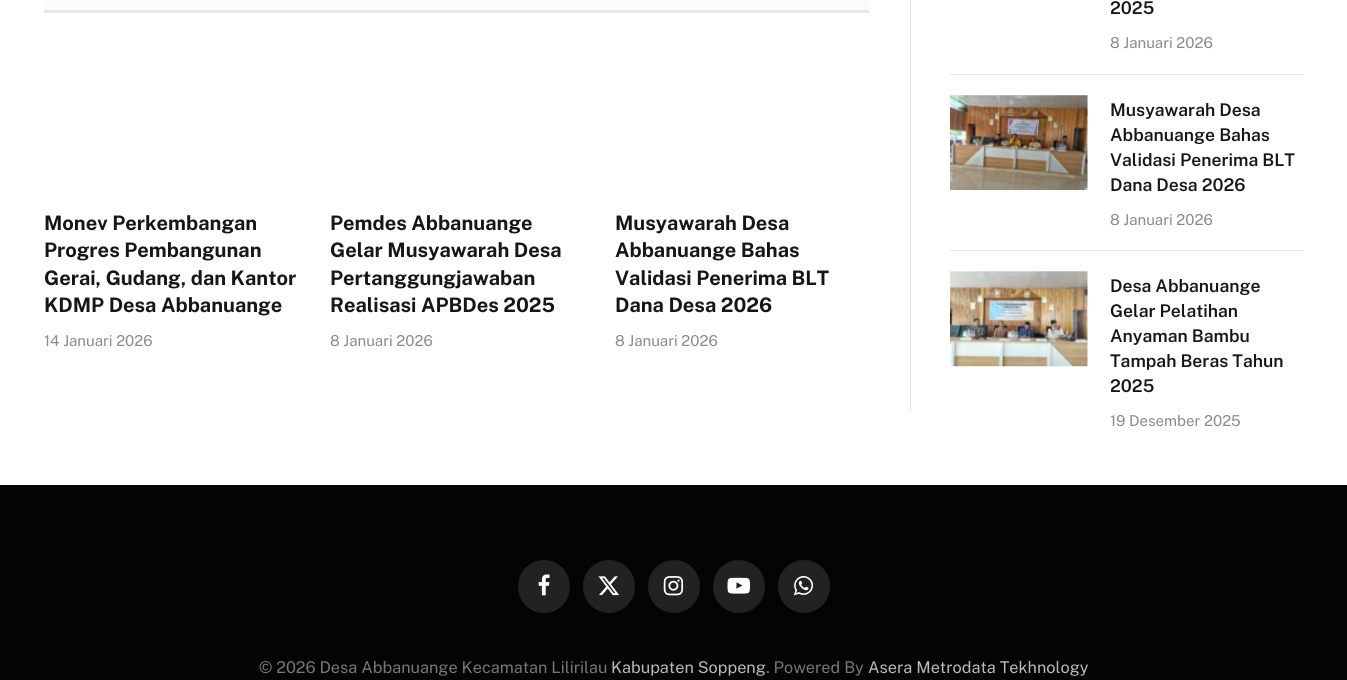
#include <cairo.h>
#include <math.h>
#include <stddef.h>

static cairo_t *ctx;

static void use_color(int r, int g, int b) {
    cairo_set_source_rgb(ctx, r / 255.0, g / 255.0, b / 255.0);
}

static void round_rect(double x, double y, double w, double h, double r) {
    cairo_new_sub_path(ctx);
    cairo_arc(ctx, x + w - r, y + h - r, r, 0, M_PI / 2);
    cairo_arc(ctx, x + r, y + h - r, r, M_PI / 2, M_PI);
    cairo_arc(ctx, x + r, y + r, r, M_PI, 1.5 * M_PI);
    cairo_arc(ctx, x + w - r, y + r, r, 1.5 * M_PI, 2 * M_PI);
    cairo_close_path(ctx);
}

static void picture(const char *path, double x, double y, double w, double h) {
    cairo_surface_t *image = cairo_image_surface_create_from_png(path);
    cairo_save(ctx);
    cairo_set_source_surface(ctx, image, x, y);
    cairo_rectangle(ctx, x, y, w, h);
    cairo_fill(ctx);
    cairo_restore(ctx);
    cairo_surface_destroy(image);
}

int main(void) {
    cairo_surface_t *surface = cairo_image_surface_create(CAIRO_FORMAT_RGB24, 1347, 680);
    ctx = cairo_create(surface);
    cairo_font_options_t *options = cairo_font_options_create();
    cairo_font_options_set_hint_metrics(options, CAIRO_HINT_METRICS_OFF);
    cairo_font_options_set_hint_style(options, CAIRO_HINT_STYLE_NONE);
    cairo_set_font_options(ctx, options);
    cairo_set_miter_limit(ctx, 4);
    use_color(255, 255, 255);
    cairo_paint(ctx);
    use_color(251, 251, 251);
    cairo_rectangle(ctx, 44, 0, 825, 10);
    cairo_fill(ctx);
    use_color(232, 232, 232);
    cairo_rectangle(ctx, 44, 10, 825, 3);
    cairo_fill(ctx);
    cairo_select_font_face(ctx, "Public Sans", CAIRO_FONT_SLANT_NORMAL, CAIRO_FONT_WEIGHT_BOLD);
    cairo_set_font_size(ctx, 20);
    use_color(22, 22, 22);
    cairo_move_to(ctx, 44, 230);
    cairo_show_text(ctx, "Monev Perkembangan");
    cairo_move_to(ctx, 44, 257);
    cairo_show_text(ctx, "Progres Pembangunan");
    cairo_move_to(ctx, 44, 285);
    cairo_show_text(ctx, "Gerai, Gudang, dan Kantor");
    cairo_move_to(ctx, 44, 312);
    cairo_show_text(ctx, "KDMP Desa Abbanuange");
    cairo_select_font_face(ctx, "Public Sans", CAIRO_FONT_SLANT_NORMAL, CAIRO_FONT_WEIGHT_NORMAL);
    cairo_set_font_size(ctx, 15);
    use_color(138, 138, 138);
    cairo_move_to(ctx, 44, 346);
    cairo_show_text(ctx, "14 Januari 2026");
    cairo_select_font_face(ctx, "Public Sans", CAIRO_FONT_SLANT_NORMAL, CAIRO_FONT_WEIGHT_BOLD);
    cairo_set_font_size(ctx, 20);
    use_color(22, 22, 22);
    cairo_move_to(ctx, 330, 230);
    cairo_show_text(ctx, "Pemdes Abbanuange");
    cairo_move_to(ctx, 330, 257);
    cairo_show_text(ctx, "Gelar Musyawarah Desa");
    cairo_move_to(ctx, 330, 285);
    cairo_show_text(ctx, "Pertanggungjawaban");
    cairo_move_to(ctx, 330, 312);
    cairo_show_text(ctx, "Realisasi APBDes 2025");
    cairo_select_font_face(ctx, "Public Sans", CAIRO_FONT_SLANT_NORMAL, CAIRO_FONT_WEIGHT_NORMAL);
    cairo_set_font_size(ctx, 15);
    use_color(138, 138, 138);
    cairo_move_to(ctx, 330, 346);
    cairo_show_text(ctx, "8 Januari 2026");
    cairo_select_font_face(ctx, "Public Sans", CAIRO_FONT_SLANT_NORMAL, CAIRO_FONT_WEIGHT_BOLD);
    cairo_set_font_size(ctx, 20);
    use_color(22, 22, 22);
    cairo_move_to(ctx, 615, 230);
    cairo_show_text(ctx, "Musyawarah Desa");
    cairo_move_to(ctx, 615, 257);
    cairo_show_text(ctx, "Abbanuange Bahas");
    cairo_move_to(ctx, 615, 285);
    cairo_show_text(ctx, "Validasi Penerima BLT");
    cairo_move_to(ctx, 615, 312);
    cairo_show_text(ctx, "Dana Desa 2026");
    cairo_select_font_face(ctx, "Public Sans", CAIRO_FONT_SLANT_NORMAL, CAIRO_FONT_WEIGHT_NORMAL);
    cairo_set_font_size(ctx, 15);
    use_color(138, 138, 138);
    cairo_move_to(ctx, 615, 346);
    cairo_show_text(ctx, "8 Januari 2026");
    use_color(226, 226, 226);
    cairo_rectangle(ctx, 910, 0, 1, 410);
    cairo_fill(ctx);
    cairo_select_font_face(ctx, "Public Sans SemiBold", CAIRO_FONT_SLANT_NORMAL, CAIRO_FONT_WEIGHT_NORMAL);
    cairo_set_font_size(ctx, 17.5);
    use_color(22, 22, 22);
    cairo_move_to(ctx, 1110, 14);
    cairo_show_text(ctx, "2025");
    cairo_select_font_face(ctx, "Public Sans", CAIRO_FONT_SLANT_NORMAL, CAIRO_FONT_WEIGHT_NORMAL);
    cairo_set_font_size(ctx, 15);
    use_color(138, 138, 138);
    cairo_move_to(ctx, 1110, 48);
    cairo_show_text(ctx, "8 Januari 2026");
    use_color(232, 232, 232);
    cairo_rectangle(ctx, 950, 74, 354, 1);
    cairo_fill(ctx);
    picture("img1.png", 950, 95, 138, 95);
    cairo_select_font_face(ctx, "Public Sans SemiBold", CAIRO_FONT_SLANT_NORMAL, CAIRO_FONT_WEIGHT_NORMAL);
    cairo_set_font_size(ctx, 17.5);
    use_color(22, 22, 22);
    cairo_move_to(ctx, 1110, 116);
    cairo_show_text(ctx, "Musyawarah Desa");
    cairo_move_to(ctx, 1110, 141);
    cairo_show_text(ctx, "Abbanuange Bahas");
    cairo_move_to(ctx, 1110, 166);
    cairo_show_text(ctx, "Validasi Penerima BLT");
    cairo_move_to(ctx, 1110, 191);
    cairo_show_text(ctx, "Dana Desa 2026");
    cairo_select_font_face(ctx, "Public Sans", CAIRO_FONT_SLANT_NORMAL, CAIRO_FONT_WEIGHT_NORMAL);
    cairo_set_font_size(ctx, 15);
    use_color(138, 138, 138);
    cairo_move_to(ctx, 1110, 225);
    cairo_show_text(ctx, "8 Januari 2026");
    use_color(232, 232, 232);
    cairo_rectangle(ctx, 950, 250, 354, 1);
    cairo_fill(ctx);
    picture("img2.png", 950, 271, 138, 96);
    cairo_select_font_face(ctx, "Public Sans SemiBold", CAIRO_FONT_SLANT_NORMAL, CAIRO_FONT_WEIGHT_NORMAL);
    cairo_set_font_size(ctx, 17.5);
    use_color(22, 22, 22);
    cairo_move_to(ctx, 1110, 292);
    cairo_show_text(ctx, "Desa Abbanuange");
    cairo_move_to(ctx, 1110, 317);
    cairo_show_text(ctx, "Gelar Pelatihan");
    cairo_move_to(ctx, 1110, 342);
    cairo_show_text(ctx, "Anyaman Bambu");
    cairo_move_to(ctx, 1110, 367);
    cairo_show_text(ctx, "Tampah Beras Tahun");
    cairo_move_to(ctx, 1110, 392);
    cairo_show_text(ctx, "2025");
    cairo_select_font_face(ctx, "Public Sans", CAIRO_FONT_SLANT_NORMAL, CAIRO_FONT_WEIGHT_NORMAL);
    cairo_set_font_size(ctx, 15);
    use_color(138, 138, 138);
    cairo_move_to(ctx, 1110, 426);
    cairo_show_text(ctx, "19 Desember 2025");
    use_color(4, 4, 4);
    cairo_rectangle(ctx, 0, 485, 1347, 195);
    cairo_fill(ctx);
    use_color(34, 34, 34);
    round_rect(518, 560, 52, 53, 26);
    cairo_fill(ctx);
    round_rect(518.5, 560.5, 51, 52, 25.5);
    cairo_set_source_rgba(ctx, 0, 0, 0, 0.09);
    cairo_set_line_width(ctx, 1);
    cairo_stroke(ctx);
    picture("img3.png", 538, 574, 12, 22);
    use_color(34, 34, 34);
    round_rect(583, 560, 52, 53, 26);
    cairo_fill(ctx);
    round_rect(583.5, 560.5, 51, 52, 25.5);
    cairo_set_source_rgba(ctx, 0, 0, 0, 0.09);
    cairo_stroke(ctx);
    picture("img4.png", 598, 576, 21, 20);
    use_color(34, 34, 34);
    round_rect(648, 560, 52, 53, 26);
    cairo_fill(ctx);
    round_rect(648.5, 560.5, 51, 52, 25.5);
    cairo_set_source_rgba(ctx, 0, 0, 0, 0.09);
    cairo_stroke(ctx);
    picture("img5.png", 663, 576, 21, 20);
    use_color(34, 34, 34);
    round_rect(713, 560, 52, 53, 26);
    cairo_fill(ctx);
    round_rect(713.5, 560.5, 51, 52, 25.5);
    cairo_set_source_rgba(ctx, 0, 0, 0, 0.09);
    cairo_stroke(ctx);
    picture("img6.png", 727, 577, 23, 17);
    use_color(34, 34, 34);
    round_rect(778, 560, 52, 53, 26);
    cairo_fill(ctx);
    round_rect(778.5, 560.5, 51, 52, 25.5);
    cairo_set_source_rgba(ctx, 0, 0, 0, 0.09);
    cairo_stroke(ctx);
    picture("img7.png", 793, 576, 20, 20);
    cairo_set_font_size(ctx, 16.25);
    use_color(119, 119, 119);
    cairo_move_to(ctx, 259, 673);
    cairo_show_text(ctx, "© 2026 Desa Abbanuange Kecamatan Lilirilau");
    use_color(187, 187, 187);
    cairo_move_to(ctx, 611, 673);
    cairo_show_text(ctx, "Kabupaten Soppeng");
    use_color(119, 119, 119);
    cairo_move_to(ctx, 766, 673);
    cairo_show_text(ctx, ". Powered By");
    use_color(187, 187, 187);
    cairo_move_to(ctx, 868, 673);
    cairo_show_text(ctx, "Asera Metrodata Tekhnology");
    cairo_surface_write_to_png(surface, "result.png");
    cairo_font_options_destroy(options);
    cairo_destroy(ctx);
    cairo_surface_destroy(surface);
    return 0;
}
